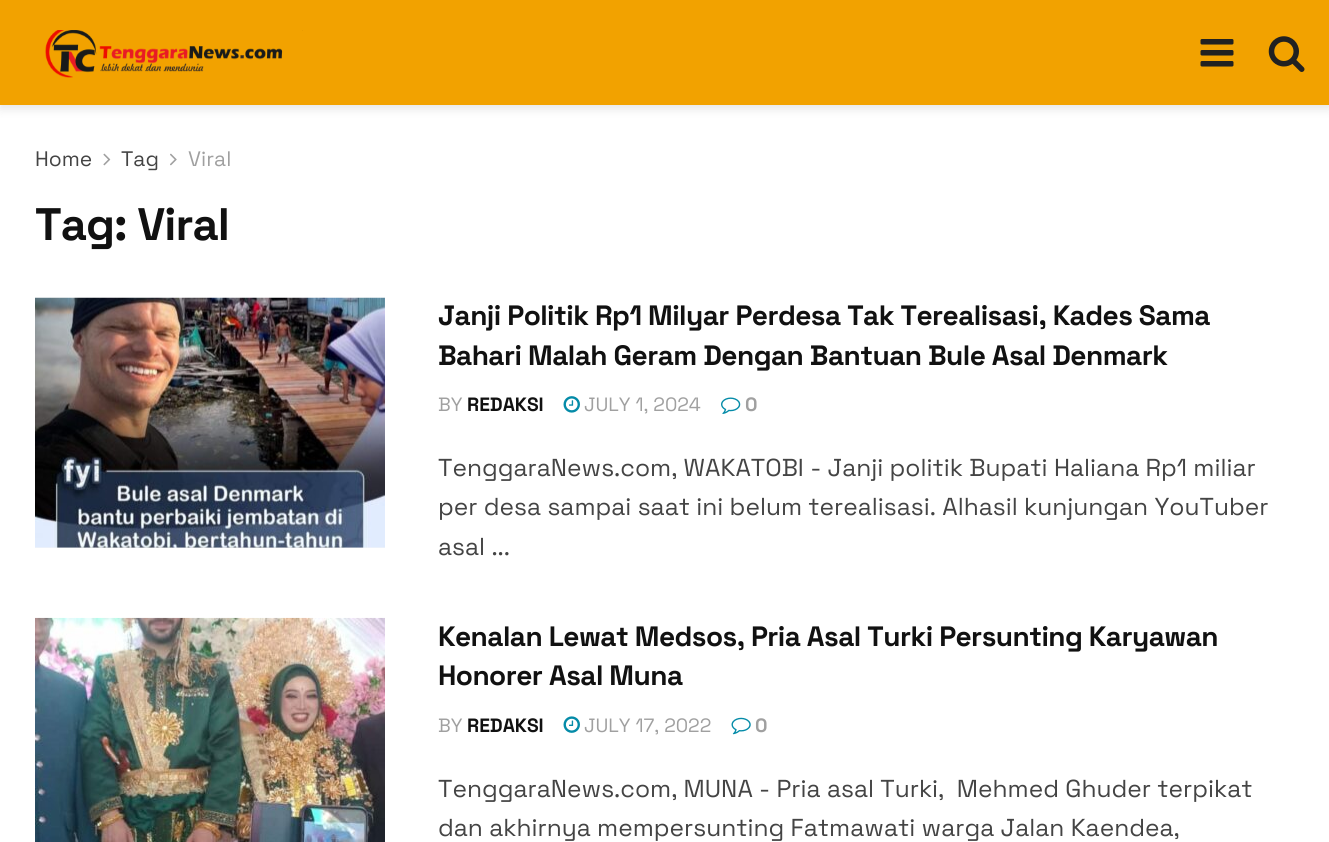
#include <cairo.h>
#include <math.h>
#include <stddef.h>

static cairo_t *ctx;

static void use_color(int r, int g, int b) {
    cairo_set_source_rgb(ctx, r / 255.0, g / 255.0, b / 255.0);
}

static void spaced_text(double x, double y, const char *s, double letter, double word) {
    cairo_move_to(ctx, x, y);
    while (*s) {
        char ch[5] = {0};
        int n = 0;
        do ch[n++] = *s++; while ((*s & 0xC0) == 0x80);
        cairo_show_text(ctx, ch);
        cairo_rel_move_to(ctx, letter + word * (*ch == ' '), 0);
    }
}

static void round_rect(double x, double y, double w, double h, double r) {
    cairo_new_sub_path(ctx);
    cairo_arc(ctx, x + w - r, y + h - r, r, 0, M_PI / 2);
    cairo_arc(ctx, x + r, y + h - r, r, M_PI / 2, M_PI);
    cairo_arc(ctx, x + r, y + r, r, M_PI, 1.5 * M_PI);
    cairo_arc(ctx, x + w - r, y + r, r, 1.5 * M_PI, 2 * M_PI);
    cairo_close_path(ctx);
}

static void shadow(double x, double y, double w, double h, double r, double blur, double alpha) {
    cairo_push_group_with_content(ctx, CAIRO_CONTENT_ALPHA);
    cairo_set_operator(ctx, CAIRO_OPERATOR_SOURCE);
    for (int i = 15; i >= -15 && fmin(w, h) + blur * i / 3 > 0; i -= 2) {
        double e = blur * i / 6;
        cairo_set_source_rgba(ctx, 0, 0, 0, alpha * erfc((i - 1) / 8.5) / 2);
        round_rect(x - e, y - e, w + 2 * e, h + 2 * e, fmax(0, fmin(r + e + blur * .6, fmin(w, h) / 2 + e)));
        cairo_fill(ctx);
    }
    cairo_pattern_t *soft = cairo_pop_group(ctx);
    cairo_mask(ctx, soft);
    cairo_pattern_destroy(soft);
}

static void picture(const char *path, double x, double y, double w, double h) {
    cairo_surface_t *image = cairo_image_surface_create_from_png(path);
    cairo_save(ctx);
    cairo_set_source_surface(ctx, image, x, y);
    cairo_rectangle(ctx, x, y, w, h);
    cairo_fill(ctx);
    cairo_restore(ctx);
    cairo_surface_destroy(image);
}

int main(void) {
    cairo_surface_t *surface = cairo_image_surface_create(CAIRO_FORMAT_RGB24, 1329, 842);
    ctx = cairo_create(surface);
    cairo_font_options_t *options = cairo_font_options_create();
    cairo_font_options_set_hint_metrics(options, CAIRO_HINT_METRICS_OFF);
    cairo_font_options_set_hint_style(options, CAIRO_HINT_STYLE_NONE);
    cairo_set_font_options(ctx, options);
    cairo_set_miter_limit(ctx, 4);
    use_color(255, 255, 255);
    cairo_paint(ctx);
    use_color(0, 0, 0);
    shadow(0, 4, 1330, 105, 0, 5, 0.1);
    use_color(242, 162, 0);
    cairo_rectangle(ctx, 0, 0, 1329, 105);
    cairo_fill(ctx);
    picture("img1.png", 45, 30, 258, 48);
    picture("img2.png", 1200, 39, 34, 28);
    picture("img3.png", 1268, 36, 37, 36);
    cairo_select_font_face(ctx, "Space Grotesk", CAIRO_FONT_SLANT_NORMAL, CAIRO_FONT_WEIGHT_NORMAL);
    cairo_set_font_size(ctx, 21);
    use_color(68, 68, 68);
    cairo_move_to(ctx, 35, 166);
    cairo_show_text(ctx, "Home");
    picture("img4.png", 103, 153, 8, 13);
    cairo_move_to(ctx, 121, 166);
    cairo_show_text(ctx, "Tag");
    picture("img5.png", 170, 153, 7, 13);
    use_color(160, 160, 160);
    cairo_move_to(ctx, 188, 166);
    cairo_show_text(ctx, "Viral");
    cairo_select_font_face(ctx, "Space Grotesk", CAIRO_FONT_SLANT_NORMAL, CAIRO_FONT_WEIGHT_BOLD);
    cairo_set_font_size(ctx, 45.5);
    use_color(17, 17, 17);
    spaced_text(35, 240, "Tag: Viral", -1, 0);
    use_color(247, 247, 247);
    cairo_rectangle(ctx, 35, 547, 350, 1);
    cairo_fill(ctx);
    picture("img6.png", 35, 297, 350, 251);
    cairo_set_font_size(ctx, 28);
    use_color(17, 17, 17);
    spaced_text(438, 325, "Janji Politik Rp1 Milyar Perdesa Tak Terealisasi, Kades Sama", -0.55, 0);
    spaced_text(438, 365, "Bahari Malah Geram Dengan Bantuan Bule Asal Denmark", -0.55, 0);
    cairo_select_font_face(ctx, "Space Grotesk", CAIRO_FONT_SLANT_NORMAL, CAIRO_FONT_WEIGHT_NORMAL);
    cairo_set_font_size(ctx, 19.25);
    use_color(160, 160, 160);
    cairo_move_to(ctx, 438, 411);
    cairo_show_text(ctx, "BY");
    cairo_select_font_face(ctx, "Space Grotesk", CAIRO_FONT_SLANT_NORMAL, CAIRO_FONT_WEIGHT_BOLD);
    use_color(17, 17, 17);
    cairo_move_to(ctx, 467, 411);
    cairo_show_text(ctx, "REDAKSI");
    picture("img7.png", 563, 396, 17, 17);
    cairo_select_font_face(ctx, "Space Grotesk", CAIRO_FONT_SLANT_NORMAL, CAIRO_FONT_WEIGHT_NORMAL);
    use_color(160, 160, 160);
    cairo_move_to(ctx, 584, 411);
    cairo_show_text(ctx, "JULY 1, 2024");
    picture("img8.png", 721, 397, 20, 17);
    cairo_select_font_face(ctx, "Space Grotesk", CAIRO_FONT_SLANT_NORMAL, CAIRO_FONT_WEIGHT_BOLD);
    cairo_move_to(ctx, 745, 411);
    cairo_show_text(ctx, "0");
    cairo_select_font_face(ctx, "Space Grotesk", CAIRO_FONT_SLANT_NORMAL, CAIRO_FONT_WEIGHT_NORMAL);
    cairo_set_font_size(ctx, 24.5);
    use_color(68, 68, 68);
    cairo_move_to(ctx, 438, 476);
    cairo_show_text(ctx, "TenggaraNews.com, WAKATOBI - Janji politik Bupati Haliana Rp1 miliar");
    cairo_move_to(ctx, 438, 515);
    cairo_show_text(ctx, "per desa sampai saat ini belum terealisasi. Alhasil kunjungan YouTuber");
    cairo_move_to(ctx, 438, 555);
    cairo_show_text(ctx, "asal ...");
    picture("img9.png", 35, 617, 350, 225);
    cairo_select_font_face(ctx, "Space Grotesk", CAIRO_FONT_SLANT_NORMAL, CAIRO_FONT_WEIGHT_BOLD);
    cairo_set_font_size(ctx, 28);
    use_color(17, 17, 17);
    spaced_text(438, 646, "Kenalan Lewat Medsos, Pria Asal Turki Persunting Karyawan", -0.55, 0);
    spaced_text(438, 685, "Honorer Asal Muna", -0.55, 0);
    cairo_select_font_face(ctx, "Space Grotesk", CAIRO_FONT_SLANT_NORMAL, CAIRO_FONT_WEIGHT_NORMAL);
    cairo_set_font_size(ctx, 19.25);
    use_color(160, 160, 160);
    cairo_move_to(ctx, 438, 732);
    cairo_show_text(ctx, "BY");
    cairo_select_font_face(ctx, "Space Grotesk", CAIRO_FONT_SLANT_NORMAL, CAIRO_FONT_WEIGHT_BOLD);
    use_color(17, 17, 17);
    cairo_move_to(ctx, 467, 732);
    cairo_show_text(ctx, "REDAKSI");
    picture("img10.png", 563, 716, 17, 17);
    cairo_select_font_face(ctx, "Space Grotesk", CAIRO_FONT_SLANT_NORMAL, CAIRO_FONT_WEIGHT_NORMAL);
    use_color(160, 160, 160);
    cairo_move_to(ctx, 584, 732);
    cairo_show_text(ctx, "JULY 17, 2022");
    picture("img11.png", 731, 717, 20, 18);
    cairo_select_font_face(ctx, "Space Grotesk", CAIRO_FONT_SLANT_NORMAL, CAIRO_FONT_WEIGHT_BOLD);
    cairo_move_to(ctx, 755, 732);
    cairo_show_text(ctx, "0");
    cairo_select_font_face(ctx, "Space Grotesk", CAIRO_FONT_SLANT_NORMAL, CAIRO_FONT_WEIGHT_NORMAL);
    cairo_set_font_size(ctx, 24.5);
    use_color(68, 68, 68);
    cairo_move_to(ctx, 438, 797);
    cairo_show_text(ctx, "TenggaraNews.com, MUNA - Pria asal Turki,  Mehmed Ghuder terpikat");
    cairo_move_to(ctx, 438, 836);
    cairo_show_text(ctx, "dan akhirnya mempersunting Fatmawati warga Jalan Kaendea,");
    cairo_surface_write_to_png(surface, "result.png");
    cairo_font_options_destroy(options);
    cairo_destroy(ctx);
    cairo_surface_destroy(surface);
    return 0;
}
